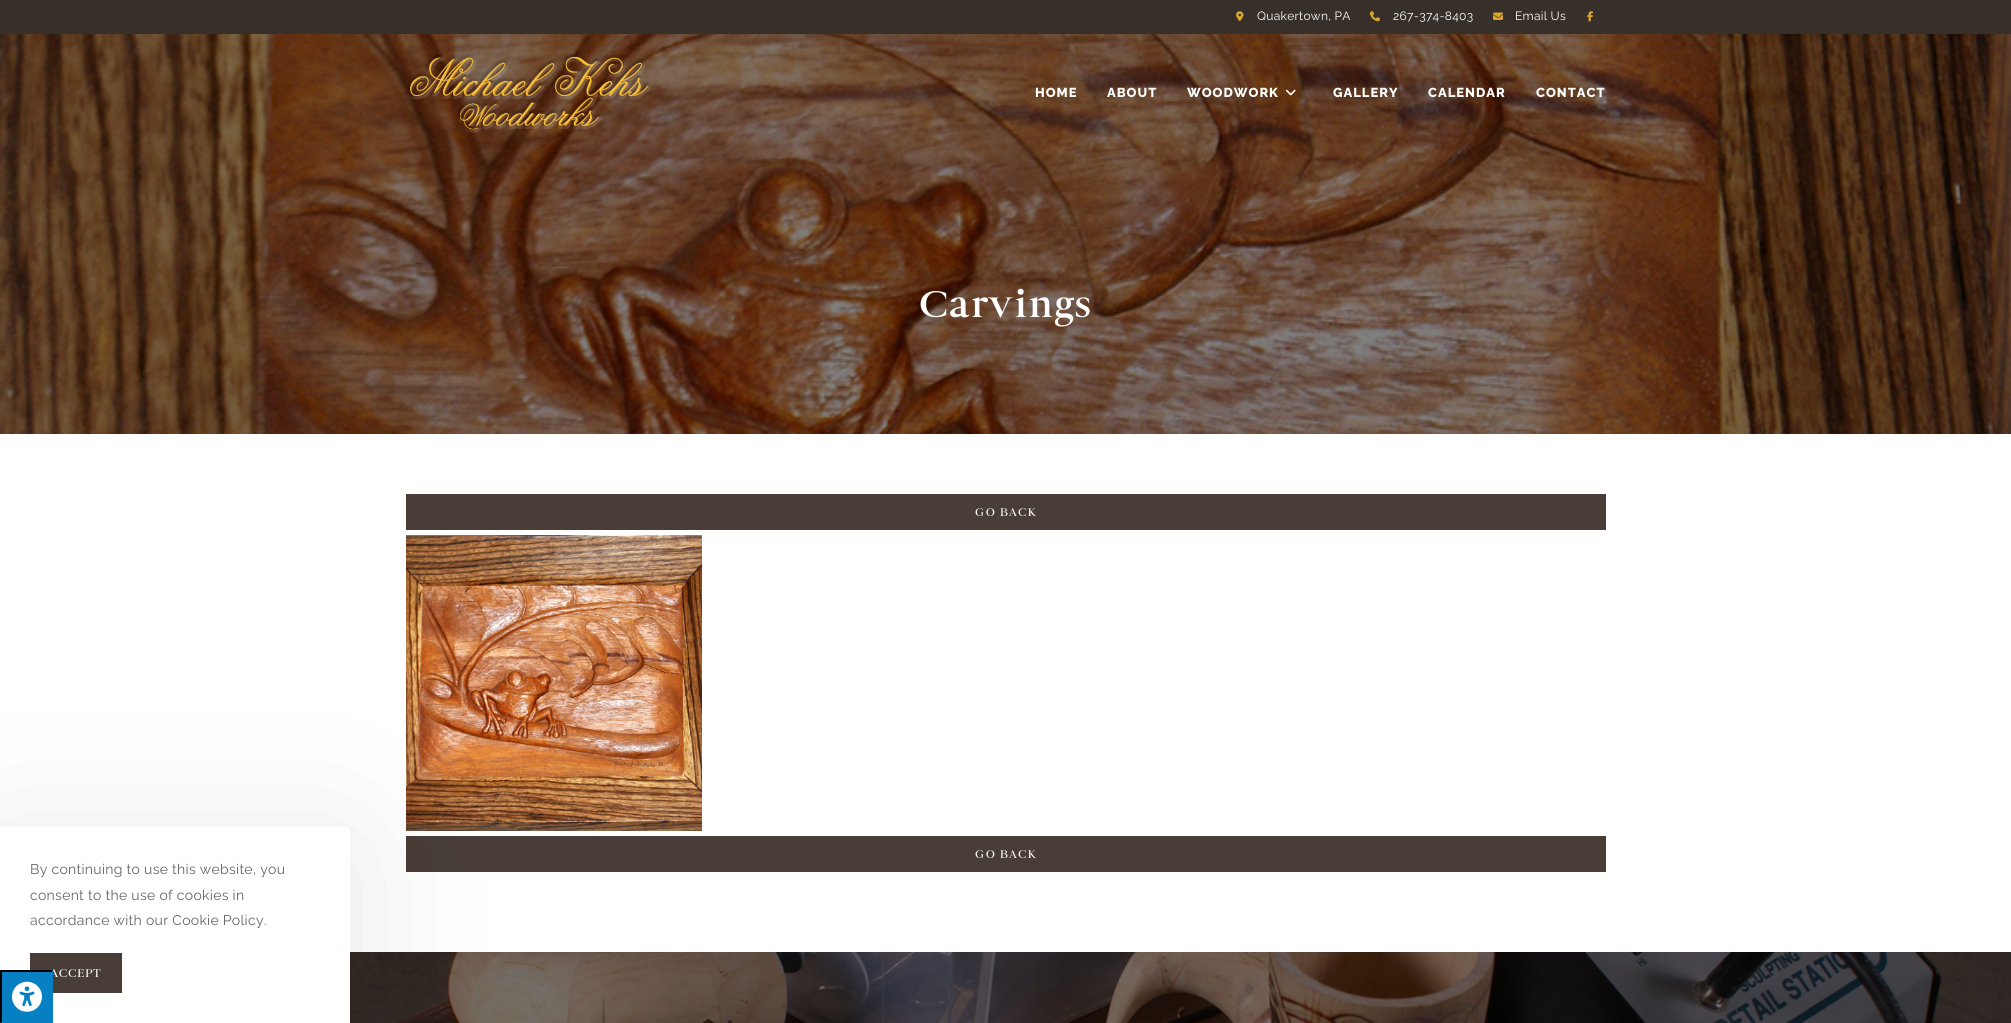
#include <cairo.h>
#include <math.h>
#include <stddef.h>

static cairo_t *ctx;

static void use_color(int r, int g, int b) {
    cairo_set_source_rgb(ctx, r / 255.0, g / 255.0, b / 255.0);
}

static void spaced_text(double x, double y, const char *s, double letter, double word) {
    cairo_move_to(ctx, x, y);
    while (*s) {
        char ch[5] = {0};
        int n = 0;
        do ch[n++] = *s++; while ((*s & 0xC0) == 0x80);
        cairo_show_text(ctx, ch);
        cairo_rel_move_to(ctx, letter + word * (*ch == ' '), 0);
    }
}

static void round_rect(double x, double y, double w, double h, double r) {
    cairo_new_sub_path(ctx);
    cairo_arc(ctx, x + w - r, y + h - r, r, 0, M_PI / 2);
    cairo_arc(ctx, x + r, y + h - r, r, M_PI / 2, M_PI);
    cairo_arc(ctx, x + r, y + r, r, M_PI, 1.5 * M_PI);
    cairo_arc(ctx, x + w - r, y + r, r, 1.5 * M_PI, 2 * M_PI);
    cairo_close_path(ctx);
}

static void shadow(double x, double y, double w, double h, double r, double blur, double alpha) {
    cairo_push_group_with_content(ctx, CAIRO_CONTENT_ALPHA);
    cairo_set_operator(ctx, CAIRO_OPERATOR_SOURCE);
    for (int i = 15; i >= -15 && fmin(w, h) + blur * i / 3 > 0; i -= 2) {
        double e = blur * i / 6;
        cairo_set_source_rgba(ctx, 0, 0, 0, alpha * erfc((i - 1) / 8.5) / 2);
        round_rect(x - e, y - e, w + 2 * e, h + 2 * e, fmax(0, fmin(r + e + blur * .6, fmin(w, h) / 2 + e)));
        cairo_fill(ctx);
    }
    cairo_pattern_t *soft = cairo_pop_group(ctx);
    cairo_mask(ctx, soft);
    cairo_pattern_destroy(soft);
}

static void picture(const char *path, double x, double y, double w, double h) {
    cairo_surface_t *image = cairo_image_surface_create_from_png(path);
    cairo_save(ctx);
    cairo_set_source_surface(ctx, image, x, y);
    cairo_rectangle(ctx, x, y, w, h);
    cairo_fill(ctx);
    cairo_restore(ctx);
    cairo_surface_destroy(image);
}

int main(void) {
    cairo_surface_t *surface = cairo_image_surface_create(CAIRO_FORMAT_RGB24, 2011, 1023);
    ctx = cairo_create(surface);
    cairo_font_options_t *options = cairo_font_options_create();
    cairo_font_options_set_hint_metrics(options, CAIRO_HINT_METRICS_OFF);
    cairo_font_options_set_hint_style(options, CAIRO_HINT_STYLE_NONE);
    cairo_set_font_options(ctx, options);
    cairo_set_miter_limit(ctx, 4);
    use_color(255, 255, 255);
    cairo_paint(ctx);
    use_color(55, 48, 42);
    cairo_rectangle(ctx, 0, 0, 2011, 34);
    cairo_fill(ctx);
    picture("img1.png", 1236, 11, 8, 11);
    cairo_select_font_face(ctx, "Raleway", CAIRO_FONT_SLANT_NORMAL, CAIRO_FONT_WEIGHT_NORMAL);
    cairo_set_font_size(ctx, 12);
    use_color(255, 255, 255);
    spaced_text(1257, 20, "Quakertown, PA", 0.3, 0);
    picture("img2.png", 1370, 11, 10, 11);
    spaced_text(1393, 20, "267-374-8403", 0.3, 0);
    picture("img3.png", 1493, 12, 10, 8);
    spaced_text(1515, 20, "Email Us", 0.3, 0);
    picture("img4.png", 1587, 11, 6, 11);
    picture("img7.png", 0, 34, 2011, 400);
    picture("img5.png", 407, 53, 245, 80);
    cairo_select_font_face(ctx, "Raleway ExtraBold", CAIRO_FONT_SLANT_NORMAL, CAIRO_FONT_WEIGHT_NORMAL);
    cairo_set_font_size(ctx, 13);
    spaced_text(1035, 97, "HOME", 1, 0);
    spaced_text(1107, 97, "ABOUT", 1, 0);
    spaced_text(1187, 97, "WOODWORK", 1, 0);
    picture("img6.png", 1285, 89, 11, 7);
    spaced_text(1333, 97, "GALLERY", 1, 0);
    spaced_text(1428, 97, "CALENDAR", 1, 0);
    spaced_text(1536, 97, "CONTACT", 1, 0);
    cairo_select_font_face(ctx, "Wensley", CAIRO_FONT_SLANT_NORMAL, CAIRO_FONT_WEIGHT_BOLD);
    cairo_set_font_size(ctx, 40);
    spaced_text(919, 317, "Carvings", 0.3, 0);
    use_color(72, 62, 55);
    cairo_rectangle(ctx, 406, 494, 1200, 36);
    cairo_fill(ctx);
    cairo_select_font_face(ctx, "Wensley", CAIRO_FONT_SLANT_NORMAL, CAIRO_FONT_WEIGHT_NORMAL);
    cairo_set_font_size(ctx, 12);
    use_color(255, 255, 255);
    spaced_text(975, 516, "GO BACK", 1, 0);
    picture("img8.png", 406, 535, 296, 296);
    use_color(72, 62, 55);
    cairo_rectangle(ctx, 406, 836, 1200, 36);
    cairo_fill(ctx);
    use_color(255, 255, 255);
    spaced_text(975, 858, "GO BACK", 1, 0);
    picture("img9.png", 350, 952, 1661, 71);
    use_color(0, 0, 0);
    shadow(0, 847, 350, 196, 4, 75, 0.1);
    use_color(255, 255, 255);
    cairo_new_path(ctx);
    cairo_move_to(ctx, 0, 827);
    cairo_line_to(ctx, 346, 827);
    cairo_curve_to(ctx, 348, 827, 350, 829, 350, 831);
    cairo_line_to(ctx, 350, 1023);
    cairo_line_to(ctx, 0, 1023);
    cairo_close_path(ctx);
    cairo_fill(ctx);
    cairo_select_font_face(ctx, "Raleway", CAIRO_FONT_SLANT_NORMAL, CAIRO_FONT_WEIGHT_NORMAL);
    cairo_set_font_size(ctx, 14);
    use_color(102, 102, 102);
    spaced_text(30, 874, "By continuing to use this website, you", 0.3, 0);
    spaced_text(30, 900, "consent to the use of cookies in", 0.3, 0);
    spaced_text(30, 925, "accordance with our Cookie Policy.", 0.3, 0);
    use_color(72, 62, 55);
    cairo_rectangle(ctx, 30, 953, 92, 40);
    cairo_fill(ctx);
    cairo_select_font_face(ctx, "Wensley", CAIRO_FONT_SLANT_NORMAL, CAIRO_FONT_WEIGHT_NORMAL);
    cairo_set_font_size(ctx, 12);
    use_color(255, 255, 255);
    spaced_text(50, 977, "ACCEPT", 0.5, 0);
    use_color(7, 128, 195);
    cairo_rectangle(ctx, 0, 970, 53, 53);
    cairo_fill(ctx);
    use_color(0, 0, 0);
    cairo_new_path(ctx);
    cairo_move_to(ctx, 0, 970);
    cairo_line_to(ctx, 53, 970);
    cairo_line_to(ctx, 52, 972);
    cairo_line_to(ctx, 2, 972);
    cairo_close_path(ctx);
    cairo_fill(ctx);
    use_color(7, 128, 195);
    cairo_new_path(ctx);
    cairo_move_to(ctx, 53, 970);
    cairo_line_to(ctx, 53, 1023);
    cairo_line_to(ctx, 52, 1022);
    cairo_line_to(ctx, 52, 972);
    cairo_close_path(ctx);
    cairo_fill(ctx);
    use_color(0, 0, 0);
    cairo_new_path(ctx);
    cairo_move_to(ctx, 0, 1023);
    cairo_line_to(ctx, 0, 970);
    cairo_line_to(ctx, 2, 972);
    cairo_line_to(ctx, 2, 1022);
    cairo_close_path(ctx);
    cairo_fill(ctx);
    picture("img10.png", 12, 981, 30, 31);
    cairo_surface_write_to_png(surface, "result.png");
    cairo_font_options_destroy(options);
    cairo_destroy(ctx);
    cairo_surface_destroy(surface);
    return 0;
}
